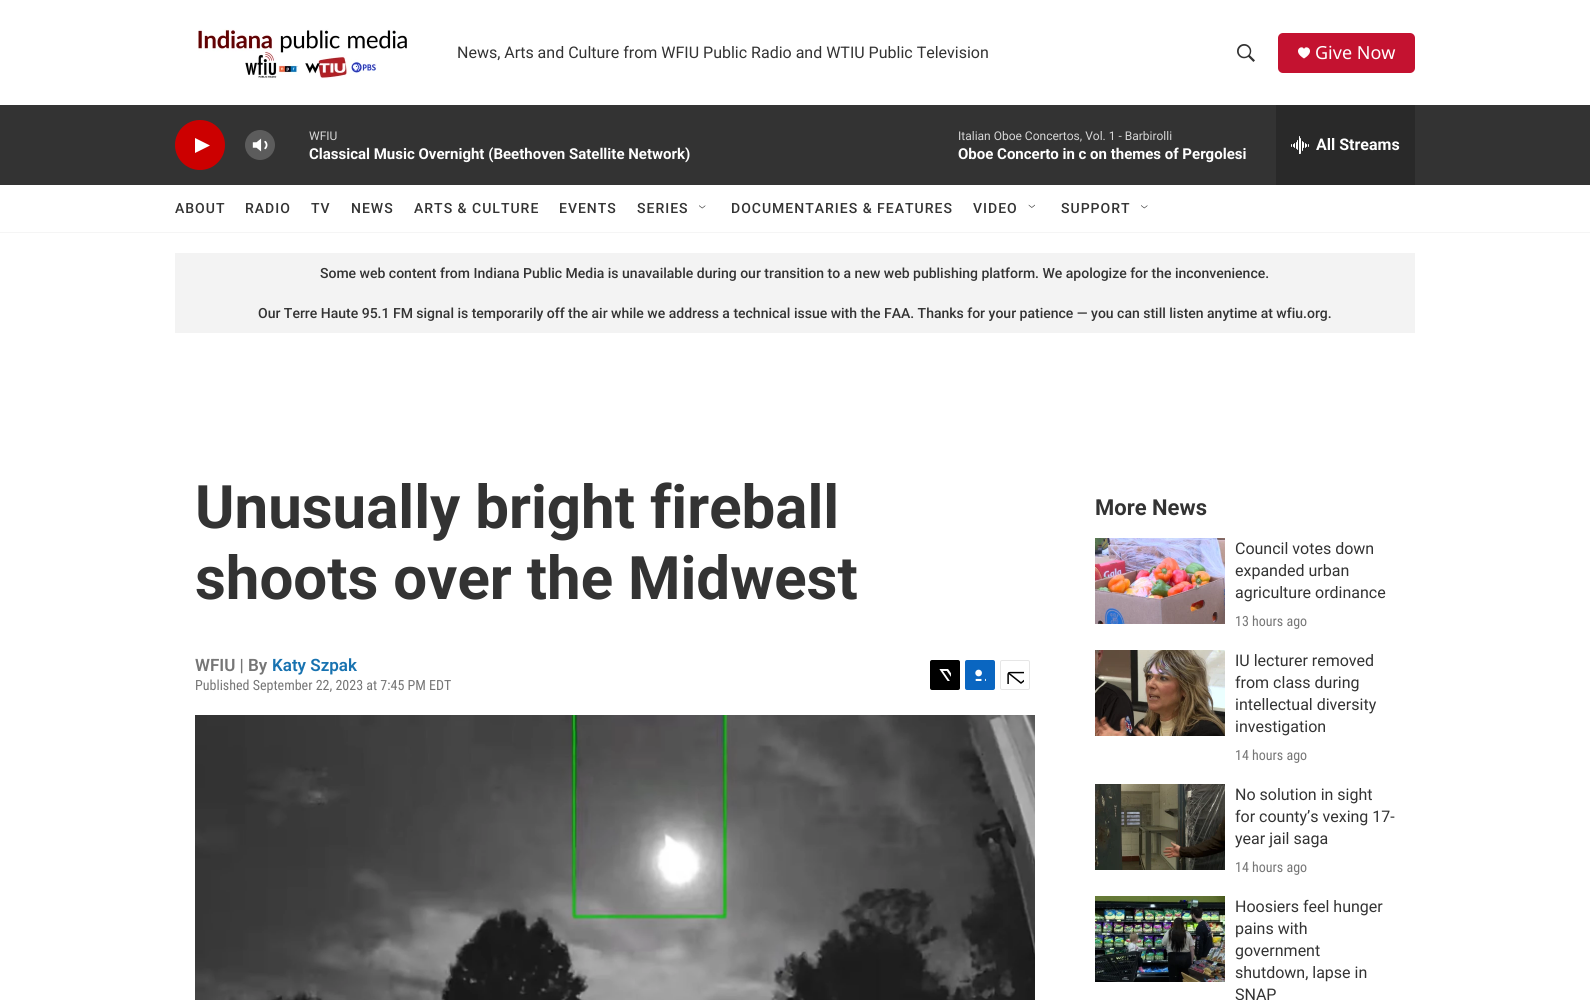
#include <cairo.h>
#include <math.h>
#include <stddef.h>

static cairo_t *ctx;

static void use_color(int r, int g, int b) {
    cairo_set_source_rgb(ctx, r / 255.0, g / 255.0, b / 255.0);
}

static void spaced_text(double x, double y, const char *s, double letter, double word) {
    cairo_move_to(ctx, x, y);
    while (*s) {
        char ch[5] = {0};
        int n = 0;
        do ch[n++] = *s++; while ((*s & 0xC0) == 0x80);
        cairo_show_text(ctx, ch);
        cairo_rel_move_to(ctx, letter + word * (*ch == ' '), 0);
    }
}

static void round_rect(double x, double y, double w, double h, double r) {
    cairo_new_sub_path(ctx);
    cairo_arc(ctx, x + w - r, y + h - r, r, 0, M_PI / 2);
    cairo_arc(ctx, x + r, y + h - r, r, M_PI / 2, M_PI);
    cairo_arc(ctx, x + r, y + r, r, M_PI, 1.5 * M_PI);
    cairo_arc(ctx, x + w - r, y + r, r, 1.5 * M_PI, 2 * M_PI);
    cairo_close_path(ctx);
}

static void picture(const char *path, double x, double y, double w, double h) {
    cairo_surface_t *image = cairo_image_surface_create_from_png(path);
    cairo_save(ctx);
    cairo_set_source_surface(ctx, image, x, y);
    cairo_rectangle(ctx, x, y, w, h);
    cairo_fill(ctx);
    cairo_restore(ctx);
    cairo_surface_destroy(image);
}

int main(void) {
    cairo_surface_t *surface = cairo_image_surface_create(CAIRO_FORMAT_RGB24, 1590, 1000);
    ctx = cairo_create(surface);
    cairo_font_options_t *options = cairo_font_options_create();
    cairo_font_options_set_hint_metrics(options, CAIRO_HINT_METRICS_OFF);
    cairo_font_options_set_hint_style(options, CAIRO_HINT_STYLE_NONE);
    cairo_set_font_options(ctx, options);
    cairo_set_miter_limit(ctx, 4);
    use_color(255, 255, 255);
    cairo_paint(ctx);
    use_color(245, 245, 245);
    cairo_rectangle(ctx, 0, 232, 1590, 1);
    cairo_fill(ctx);
    picture("img1.png", 198, 29, 209, 50);
    cairo_select_font_face(ctx, "Roboto", CAIRO_FONT_SLANT_NORMAL, CAIRO_FONT_WEIGHT_NORMAL);
    cairo_set_font_size(ctx, 16);
    use_color(51, 51, 51);
    cairo_move_to(ctx, 457, 58);
    cairo_show_text(ctx, "News, Arts and Culture from WFIU Public Radio and WTIU Public Television");
    picture("img2.png", 1237, 44, 18, 18);
    use_color(196, 18, 48);
    round_rect(1278, 33, 137, 40, 5);
    cairo_fill(ctx);
    use_color(255, 255, 255);
    cairo_new_path(ctx);
    cairo_move_to(ctx, 1304, 49);
    cairo_curve_to(ctx, 1302, 44, 1291.5, 51, 1304, 58.5);
    cairo_curve_to(ctx, 1316.5, 51, 1306, 44, 1304, 49);
    cairo_close_path(ctx);
    cairo_fill(ctx);
    cairo_select_font_face(ctx, "Noto Sans", CAIRO_FONT_SLANT_NORMAL, CAIRO_FONT_WEIGHT_NORMAL);
    cairo_set_font_size(ctx, 18);
    cairo_move_to(ctx, 1315, 59);
    cairo_show_text(ctx, "Give Now");
    use_color(51, 51, 51);
    cairo_rectangle(ctx, 0, 105, 1590, 80);
    cairo_fill(ctx);
    use_color(204, 0, 0);
    cairo_arc(ctx, 200, 145, 25, 0, 2 * M_PI);
    cairo_fill(ctx);
    use_color(255, 255, 255);
    cairo_new_path(ctx);
    cairo_move_to(ctx, 195, 138);
    cairo_line_to(ctx, 210, 145.5);
    cairo_line_to(ctx, 195, 153);
    cairo_close_path(ctx);
    cairo_fill(ctx);
    picture("img3.png", 252, 138, 16, 14);
    cairo_set_source_rgba(ctx, 1, 1, 1, 0.2);
    cairo_arc(ctx, 260, 145, 15, 0, 2 * M_PI);
    cairo_fill(ctx);
    cairo_select_font_face(ctx, "Roboto", CAIRO_FONT_SLANT_NORMAL, CAIRO_FONT_WEIGHT_NORMAL);
    cairo_set_font_size(ctx, 12);
    use_color(214, 214, 214);
    cairo_move_to(ctx, 309, 140);
    cairo_show_text(ctx, "WFIU");
    cairo_select_font_face(ctx, "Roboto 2", CAIRO_FONT_SLANT_NORMAL, CAIRO_FONT_WEIGHT_BOLD);
    cairo_set_font_size(ctx, 15);
    use_color(255, 255, 255);
    cairo_move_to(ctx, 309, 159);
    cairo_show_text(ctx, "Classical Music Overnight (Beethoven Satellite Network)");
    cairo_select_font_face(ctx, "Roboto", CAIRO_FONT_SLANT_NORMAL, CAIRO_FONT_WEIGHT_NORMAL);
    cairo_set_font_size(ctx, 12);
    use_color(214, 214, 214);
    cairo_move_to(ctx, 958, 140);
    cairo_show_text(ctx, "Italian Oboe Concertos, Vol. 1 - Barbirolli");
    cairo_select_font_face(ctx, "Roboto 2", CAIRO_FONT_SLANT_NORMAL, CAIRO_FONT_WEIGHT_BOLD);
    cairo_set_font_size(ctx, 15);
    use_color(255, 255, 255);
    cairo_move_to(ctx, 958, 159);
    cairo_show_text(ctx, "Oboe Concerto in c on themes of Pergolesi");
    use_color(41, 41, 41);
    cairo_rectangle(ctx, 1276, 105, 139, 80);
    cairo_fill(ctx);
    picture("img4.png", 1291, 136, 18, 18);
    cairo_set_font_size(ctx, 16);
    use_color(255, 255, 255);
    cairo_move_to(ctx, 1316, 150);
    cairo_show_text(ctx, "All Streams");
    cairo_select_font_face(ctx, "Roboto Medium", CAIRO_FONT_SLANT_NORMAL, CAIRO_FONT_WEIGHT_NORMAL);
    cairo_set_font_size(ctx, 14);
    use_color(51, 51, 51);
    spaced_text(175, 213, "ABOUT", 1, 0);
    spaced_text(245, 213, "RADIO", 1, 0);
    spaced_text(311, 213, "TV", 1, 0);
    spaced_text(351, 213, "NEWS", 1, 0);
    spaced_text(414, 213, "ARTS & CULTURE", 1, 0);
    spaced_text(559, 213, "EVENTS", 1, 0);
    spaced_text(637, 213, "SERIES", 1, 0);
    picture("img5.png", 699, 205, 7, 4);
    spaced_text(731, 213, "DOCUMENTARIES & FEATURES", 1, 0);
    spaced_text(973, 213, "VIDEO", 1, 0);
    picture("img6.png", 1028, 204, 7, 4);
    spaced_text(1061, 213, "SUPPORT", 1, 0);
    picture("img7.png", 1141, 205, 7, 4);
    use_color(243, 243, 243);
    cairo_rectangle(ctx, 175, 253, 1240, 80);
    cairo_fill(ctx);
    use_color(51, 51, 51);
    cairo_move_to(ctx, 320, 278);
    cairo_show_text(ctx, "Some web content from Indiana Public Media is unavailable during our transition to a new web publishing platform. We apologize for the inconvenience.");
    cairo_move_to(ctx, 258, 318);
    cairo_show_text(ctx, "Our Terre Haute 95.1 FM signal is temporarily off the air while we address a technical issue with the FAA. Thanks for your patience — you can still listen anytime at wfiu.org.");
    cairo_select_font_face(ctx, "Roboto", CAIRO_FONT_SLANT_NORMAL, CAIRO_FONT_WEIGHT_BOLD);
    cairo_set_font_size(ctx, 60);
    cairo_move_to(ctx, 195, 528);
    cairo_show_text(ctx, "Unusually bright fireball");
    cairo_move_to(ctx, 195, 599);
    cairo_show_text(ctx, "shoots over the Midwest");
    cairo_select_font_face(ctx, "Roboto SemiBold", CAIRO_FONT_SLANT_NORMAL, CAIRO_FONT_WEIGHT_NORMAL);
    cairo_set_font_size(ctx, 17);
    use_color(118, 118, 118);
    cairo_move_to(ctx, 195, 671);
    cairo_show_text(ctx, "WFIU | By");
    use_color(23, 114, 176);
    cairo_move_to(ctx, 272, 671);
    cairo_show_text(ctx, "Katy Szpak");
    cairo_select_font_face(ctx, "Roboto Condensed", CAIRO_FONT_SLANT_NORMAL, CAIRO_FONT_WEIGHT_NORMAL);
    cairo_set_font_size(ctx, 14);
    use_color(118, 118, 118);
    cairo_move_to(ctx, 195, 690);
    cairo_show_text(ctx, "Published September 22, 2023 at 7:45 PM EDT");
    use_color(0, 0, 0);
    round_rect(930, 660, 30, 30, 2);
    cairo_fill(ctx);
    picture("img8.png", 939, 669, 12, 12);
    use_color(10, 102, 193);
    round_rect(965, 660, 30, 30, 2);
    cairo_fill(ctx);
    picture("img9.png", 975, 669, 11, 12);
    round_rect(1000.5, 660.5, 29, 29, 1.5);
    use_color(230, 230, 230);
    cairo_set_line_width(ctx, 1);
    cairo_stroke(ctx);
    picture("img10.png", 1007, 671, 17, 13);
    picture("img11.png", 195, 715, 840, 285);
    cairo_select_font_face(ctx, "Roboto", CAIRO_FONT_SLANT_NORMAL, CAIRO_FONT_WEIGHT_BOLD);
    cairo_set_font_size(ctx, 22);
    use_color(51, 51, 51);
    cairo_move_to(ctx, 1095, 515);
    cairo_show_text(ctx, "More News");
    picture("img12.png", 1095, 538, 130, 86);
    cairo_select_font_face(ctx, "Roboto", CAIRO_FONT_SLANT_NORMAL, CAIRO_FONT_WEIGHT_NORMAL);
    cairo_set_font_size(ctx, 16);
    cairo_move_to(ctx, 1235, 554);
    cairo_show_text(ctx, "Council votes down");
    cairo_move_to(ctx, 1235, 576);
    cairo_show_text(ctx, "expanded urban");
    cairo_move_to(ctx, 1235, 598);
    cairo_show_text(ctx, "agriculture ordinance");
    cairo_select_font_face(ctx, "Roboto Condensed", CAIRO_FONT_SLANT_NORMAL, CAIRO_FONT_WEIGHT_NORMAL);
    cairo_set_font_size(ctx, 14);
    use_color(118, 118, 118);
    cairo_move_to(ctx, 1235, 626);
    cairo_show_text(ctx, "13 hours ago");
    picture("img13.png", 1095, 650, 130, 86);
    cairo_select_font_face(ctx, "Roboto", CAIRO_FONT_SLANT_NORMAL, CAIRO_FONT_WEIGHT_NORMAL);
    cairo_set_font_size(ctx, 16);
    use_color(51, 51, 51);
    cairo_move_to(ctx, 1235, 666);
    cairo_show_text(ctx, "IU lecturer removed");
    cairo_move_to(ctx, 1235, 688);
    cairo_show_text(ctx, "from class during");
    cairo_move_to(ctx, 1235, 710);
    cairo_show_text(ctx, "intellectual diversity");
    cairo_move_to(ctx, 1235, 732);
    cairo_show_text(ctx, "investigation");
    cairo_select_font_face(ctx, "Roboto Condensed", CAIRO_FONT_SLANT_NORMAL, CAIRO_FONT_WEIGHT_NORMAL);
    cairo_set_font_size(ctx, 14);
    use_color(118, 118, 118);
    cairo_move_to(ctx, 1235, 760);
    cairo_show_text(ctx, "14 hours ago");
    picture("img14.png", 1095, 784, 130, 86);
    cairo_select_font_face(ctx, "Roboto", CAIRO_FONT_SLANT_NORMAL, CAIRO_FONT_WEIGHT_NORMAL);
    cairo_set_font_size(ctx, 16);
    use_color(51, 51, 51);
    cairo_move_to(ctx, 1235, 800);
    cairo_show_text(ctx, "No solution in sight");
    cairo_move_to(ctx, 1235, 822);
    cairo_show_text(ctx, "for county’s vexing 17-");
    cairo_move_to(ctx, 1235, 844);
    cairo_show_text(ctx, "year jail saga");
    cairo_select_font_face(ctx, "Roboto Condensed", CAIRO_FONT_SLANT_NORMAL, CAIRO_FONT_WEIGHT_NORMAL);
    cairo_set_font_size(ctx, 14);
    use_color(118, 118, 118);
    cairo_move_to(ctx, 1235, 872);
    cairo_show_text(ctx, "14 hours ago");
    picture("img15.png", 1095, 896, 130, 86);
    cairo_select_font_face(ctx, "Roboto", CAIRO_FONT_SLANT_NORMAL, CAIRO_FONT_WEIGHT_NORMAL);
    cairo_set_font_size(ctx, 16);
    use_color(51, 51, 51);
    cairo_move_to(ctx, 1235, 912);
    cairo_show_text(ctx, "Hoosiers feel hunger");
    cairo_move_to(ctx, 1235, 934);
    cairo_show_text(ctx, "pains with");
    cairo_move_to(ctx, 1235, 956);
    cairo_show_text(ctx, "government");
    cairo_move_to(ctx, 1235, 978);
    cairo_show_text(ctx, "shutdown, lapse in");
    cairo_move_to(ctx, 1235, 1000);
    cairo_show_text(ctx, "SNAP");
    cairo_surface_write_to_png(surface, "result.png");
    cairo_font_options_destroy(options);
    cairo_destroy(ctx);
    cairo_surface_destroy(surface);
    return 0;
}
